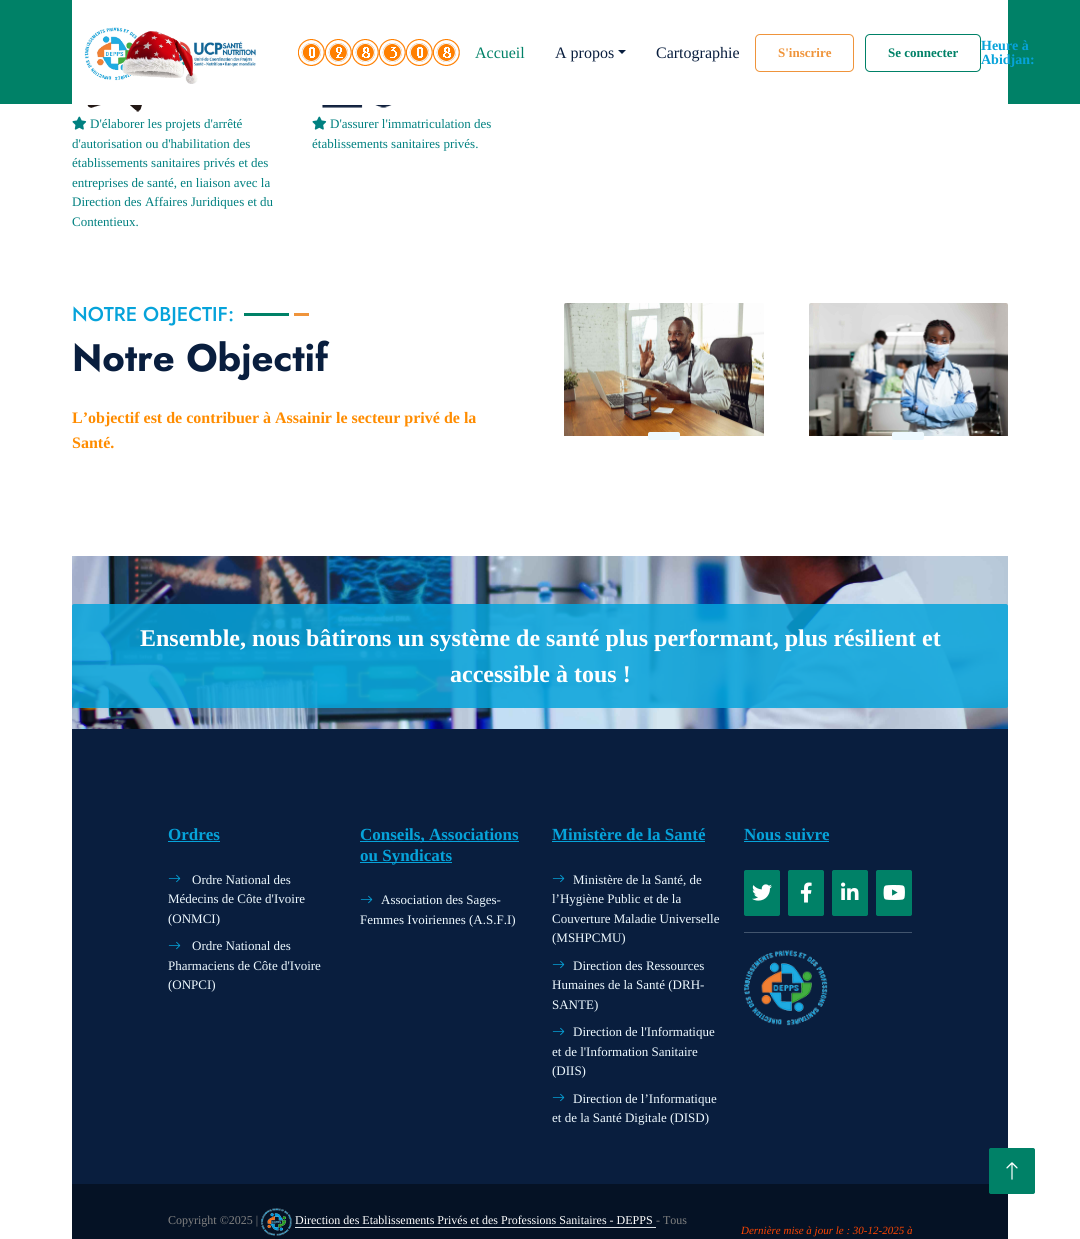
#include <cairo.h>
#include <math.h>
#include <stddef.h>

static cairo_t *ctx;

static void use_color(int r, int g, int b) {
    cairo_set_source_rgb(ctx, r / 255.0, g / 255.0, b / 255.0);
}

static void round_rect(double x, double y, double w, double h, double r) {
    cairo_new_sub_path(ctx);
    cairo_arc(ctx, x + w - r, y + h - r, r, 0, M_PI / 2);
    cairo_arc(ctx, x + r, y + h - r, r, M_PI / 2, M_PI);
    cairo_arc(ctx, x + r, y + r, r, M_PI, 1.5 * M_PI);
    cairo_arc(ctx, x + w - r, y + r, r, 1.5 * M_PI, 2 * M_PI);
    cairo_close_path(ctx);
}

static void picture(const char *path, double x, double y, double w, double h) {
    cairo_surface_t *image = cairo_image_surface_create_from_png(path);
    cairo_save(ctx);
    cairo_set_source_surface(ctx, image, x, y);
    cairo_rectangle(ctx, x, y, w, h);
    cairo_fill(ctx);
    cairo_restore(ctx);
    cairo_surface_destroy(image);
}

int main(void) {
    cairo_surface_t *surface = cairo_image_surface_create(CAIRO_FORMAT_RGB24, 1080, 1239);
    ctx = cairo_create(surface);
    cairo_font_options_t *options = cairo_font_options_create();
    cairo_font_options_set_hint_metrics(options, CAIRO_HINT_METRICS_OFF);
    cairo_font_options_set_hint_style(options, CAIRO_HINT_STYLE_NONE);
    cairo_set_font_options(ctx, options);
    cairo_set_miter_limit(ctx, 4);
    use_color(255, 255, 255);
    cairo_paint(ctx);
    use_color(0, 129, 103);
    cairo_rectangle(ctx, 0, 0, 1080, 104);
    cairo_fill(ctx);
    use_color(255, 255, 255);
    cairo_rectangle(ctx, 72, 0, 936, 104);
    cairo_fill(ctx);
    picture("img1.png", 84, 27, 172, 57);
    picture("img2.png", 298, 39, 162, 27);
    cairo_select_font_face(ctx, "Liberation Serif", CAIRO_FONT_SLANT_NORMAL, CAIRO_FONT_WEIGHT_NORMAL);
    cairo_set_font_size(ctx, 16);
    use_color(0, 129, 103);
    cairo_move_to(ctx, 475, 58);
    cairo_show_text(ctx, "Accueil");
    use_color(9, 30, 62);
    cairo_move_to(ctx, 555, 58);
    cairo_show_text(ctx, "A propos");
    cairo_new_path(ctx);
    cairo_move_to(ctx, 618, 50);
    cairo_line_to(ctx, 626, 50);
    cairo_line_to(ctx, 622, 54);
    cairo_close_path(ctx);
    cairo_fill(ctx);
    cairo_move_to(ctx, 656, 58);
    cairo_show_text(ctx, "Cartographie");
    round_rect(755.5, 34.5, 98, 37, 4.5);
    use_color(239, 148, 59);
    cairo_set_line_width(ctx, 1);
    cairo_stroke(ctx);
    cairo_select_font_face(ctx, "Liberation Serif", CAIRO_FONT_SLANT_NORMAL, CAIRO_FONT_WEIGHT_BOLD);
    cairo_set_font_size(ctx, 13);
    cairo_move_to(ctx, 778, 57);
    cairo_show_text(ctx, "S'inscrire");
    round_rect(865.5, 34.5, 115, 37, 4.5);
    use_color(0, 129, 103);
    cairo_stroke(ctx);
    cairo_move_to(ctx, 888, 57);
    cairo_show_text(ctx, "Se connecter");
    cairo_set_font_size(ctx, 14);
    use_color(6, 163, 218);
    cairo_move_to(ctx, 981, 50);
    cairo_show_text(ctx, "Heure à");
    cairo_move_to(ctx, 981, 64);
    cairo_show_text(ctx, "Abidjan:");
    picture("img3.png", 87, 105, 55, 7);
    picture("img4.png", 72, 116, 15, 14);
    cairo_select_font_face(ctx, "Liberation Serif", CAIRO_FONT_SLANT_NORMAL, CAIRO_FONT_WEIGHT_NORMAL);
    cairo_set_font_size(ctx, 13);
    use_color(0, 128, 128);
    cairo_move_to(ctx, 90, 128);
    cairo_show_text(ctx, "D'élaborer les projets d'arrêté");
    cairo_move_to(ctx, 72, 148);
    cairo_show_text(ctx, "d'autorisation ou d'habilitation des");
    cairo_move_to(ctx, 72, 167);
    cairo_show_text(ctx, "établissements sanitaires privés et des");
    cairo_move_to(ctx, 72, 187);
    cairo_show_text(ctx, "entreprises de santé, en liaison avec la");
    cairo_move_to(ctx, 72, 206);
    cairo_show_text(ctx, "Direction des Affaires Juridiques et du");
    cairo_move_to(ctx, 72, 226);
    cairo_show_text(ctx, "Contentieux.");
    picture("img5.png", 322, 105, 70, 3);
    picture("img4.png", 312, 116, 15, 14);
    cairo_move_to(ctx, 330, 128);
    cairo_show_text(ctx, "D'assurer l'immatriculation des");
    cairo_move_to(ctx, 312, 148);
    cairo_show_text(ctx, "établissements sanitaires privés.");
    cairo_select_font_face(ctx, "Jost Medium", CAIRO_FONT_SLANT_NORMAL, CAIRO_FONT_WEIGHT_NORMAL);
    cairo_set_font_size(ctx, 20);
    use_color(6, 163, 218);
    cairo_move_to(ctx, 72, 321);
    cairo_show_text(ctx, "NOTRE OBJECTIF:");
    use_color(0, 129, 103);
    cairo_rectangle(ctx, 244, 313, 45, 3);
    cairo_fill(ctx);
    use_color(239, 148, 59);
    cairo_rectangle(ctx, 294, 313, 15, 3);
    cairo_fill(ctx);
    cairo_select_font_face(ctx, "Jost", CAIRO_FONT_SLANT_NORMAL, CAIRO_FONT_WEIGHT_BOLD);
    cairo_set_font_size(ctx, 38.25);
    use_color(9, 30, 62);
    cairo_move_to(ctx, 72, 371);
    cairo_show_text(ctx, "Notre Objectif");
    cairo_select_font_face(ctx, "Liberation Serif", CAIRO_FONT_SLANT_NORMAL, CAIRO_FONT_WEIGHT_BOLD);
    cairo_set_font_size(ctx, 16);
    use_color(255, 140, 0);
    cairo_move_to(ctx, 72, 423);
    cairo_show_text(ctx, "L’objectif est de contribuer à Assainir le secteur privé de la");
    cairo_move_to(ctx, 72, 448);
    cairo_show_text(ctx, "Santé.");
    picture("img6.png", 564, 303, 200, 133);
    use_color(238, 249, 255);
    round_rect(648, 432, 32, 8, 2);
    cairo_fill(ctx);
    picture("img7.png", 809, 303, 199, 133);
    round_rect(892, 432, 32, 8, 2);
    cairo_fill(ctx);
    picture("img8.png", 72, 556, 936, 173);
    cairo_set_source_rgba(ctx, 0.024, 0.639, 0.855, 0.85);
    round_rect(72, 604, 936, 104, 2);
    cairo_fill(ctx);
    cairo_set_font_size(ctx, 24);
    use_color(255, 255, 255);
    cairo_move_to(ctx, 140, 646);
    cairo_show_text(ctx, "Ensemble, nous bâtirons un système de santé plus performant, plus résilient et");
    cairo_move_to(ctx, 450, 682);
    cairo_show_text(ctx, "accessible à tous !");
    use_color(9, 30, 62);
    cairo_rectangle(ctx, 72, 729, 936, 455);
    cairo_fill(ctx);
    cairo_set_font_size(ctx, 17);
    use_color(6, 163, 218);
    cairo_move_to(ctx, 168, 840);
    cairo_show_text(ctx, "Ordres");
    cairo_rectangle(ctx, 168, 841, 52, 1);
    cairo_fill(ctx);
    picture("img9.png", 168, 874, 13, 9);
    cairo_select_font_face(ctx, "Liberation Serif", CAIRO_FONT_SLANT_NORMAL, CAIRO_FONT_WEIGHT_NORMAL);
    cairo_set_font_size(ctx, 13);
    use_color(238, 249, 255);
    cairo_move_to(ctx, 192, 884);
    cairo_show_text(ctx, "Ordre National des");
    cairo_move_to(ctx, 168, 903);
    cairo_show_text(ctx, "Médecins de Côte d'Ivoire");
    cairo_move_to(ctx, 168, 923);
    cairo_show_text(ctx, "(ONMCI)");
    picture("img9.png", 168, 941, 13, 9);
    cairo_move_to(ctx, 192, 950);
    cairo_show_text(ctx, "Ordre National des");
    cairo_move_to(ctx, 168, 970);
    cairo_show_text(ctx, "Pharmaciens de Côte d'Ivoire");
    cairo_move_to(ctx, 168, 989);
    cairo_show_text(ctx, "(ONPCI)");
    use_color(6, 163, 218);
    cairo_rectangle(ctx, 360, 841, 159, 1);
    cairo_fill(ctx);
    cairo_select_font_face(ctx, "Liberation Serif", CAIRO_FONT_SLANT_NORMAL, CAIRO_FONT_WEIGHT_BOLD);
    cairo_set_font_size(ctx, 17);
    cairo_move_to(ctx, 360, 840);
    cairo_show_text(ctx, "Conseils, Associations");
    cairo_rectangle(ctx, 360, 862, 92, 1);
    cairo_fill(ctx);
    cairo_move_to(ctx, 360, 861);
    cairo_show_text(ctx, "ou Syndicats");
    picture("img9.png", 360, 895, 13, 9);
    cairo_select_font_face(ctx, "Liberation Serif", CAIRO_FONT_SLANT_NORMAL, CAIRO_FONT_WEIGHT_NORMAL);
    cairo_set_font_size(ctx, 13);
    use_color(238, 249, 255);
    cairo_move_to(ctx, 381, 904);
    cairo_show_text(ctx, "Association des Sages-");
    cairo_move_to(ctx, 360, 924);
    cairo_show_text(ctx, "Femmes Ivoiriennes (A.S.F.I)");
    cairo_select_font_face(ctx, "Liberation Serif", CAIRO_FONT_SLANT_NORMAL, CAIRO_FONT_WEIGHT_BOLD);
    cairo_set_font_size(ctx, 17);
    use_color(6, 163, 218);
    cairo_move_to(ctx, 552, 840);
    cairo_show_text(ctx, "Ministère de la Santé");
    cairo_rectangle(ctx, 552, 841, 153, 1);
    cairo_fill(ctx);
    picture("img9.png", 552, 874, 13, 9);
    cairo_select_font_face(ctx, "Liberation Serif", CAIRO_FONT_SLANT_NORMAL, CAIRO_FONT_WEIGHT_NORMAL);
    cairo_set_font_size(ctx, 13);
    use_color(238, 249, 255);
    cairo_move_to(ctx, 573, 884);
    cairo_show_text(ctx, "Ministère de la Santé, de");
    cairo_move_to(ctx, 552, 903);
    cairo_show_text(ctx, "l’Hygiène Public et de la");
    cairo_move_to(ctx, 552, 923);
    cairo_show_text(ctx, "Couverture Maladie Universelle");
    cairo_move_to(ctx, 552, 942);
    cairo_show_text(ctx, "(MSHPCMU)");
    picture("img9.png", 552, 960, 13, 9);
    cairo_move_to(ctx, 573, 970);
    cairo_show_text(ctx, "Direction des Ressources");
    cairo_move_to(ctx, 552, 989);
    cairo_show_text(ctx, "Humaines de la Santé (DRH-");
    cairo_move_to(ctx, 552, 1009);
    cairo_show_text(ctx, "SANTE)");
    picture("img9.png", 552, 1027, 13, 9);
    cairo_move_to(ctx, 573, 1036);
    cairo_show_text(ctx, "Direction de l'Informatique");
    cairo_move_to(ctx, 552, 1056);
    cairo_show_text(ctx, "et de l'Information Sanitaire");
    cairo_move_to(ctx, 552, 1075);
    cairo_show_text(ctx, "(DIIS)");
    picture("img9.png", 552, 1093, 13, 9);
    cairo_move_to(ctx, 573, 1103);
    cairo_show_text(ctx, "Direction de l’Informatique");
    cairo_move_to(ctx, 552, 1122);
    cairo_show_text(ctx, "et de la Santé Digitale (DISD)");
    cairo_select_font_face(ctx, "Liberation Serif", CAIRO_FONT_SLANT_NORMAL, CAIRO_FONT_WEIGHT_BOLD);
    cairo_set_font_size(ctx, 17);
    use_color(6, 163, 218);
    cairo_move_to(ctx, 744, 840);
    cairo_show_text(ctx, "Nous suivre");
    cairo_rectangle(ctx, 744, 841, 85, 1);
    cairo_fill(ctx);
    use_color(0, 129, 103);
    round_rect(744.5, 870.5, 35, 45, 1.5);
    cairo_fill_preserve(ctx);
    cairo_stroke(ctx);
    picture("img10.png", 752, 884, 20, 17);
    round_rect(788.5, 870.5, 35, 45, 1.5);
    cairo_fill_preserve(ctx);
    cairo_stroke(ctx);
    picture("img11.png", 800, 882, 12, 21);
    round_rect(832.5, 870.5, 35, 45, 1.5);
    cairo_fill_preserve(ctx);
    cairo_stroke(ctx);
    picture("img12.png", 841, 882, 18, 18);
    round_rect(876.5, 870.5, 35, 45, 1.5);
    cairo_fill_preserve(ctx);
    cairo_stroke(ctx);
    picture("img13.png", 883, 885, 22, 15);
    use_color(66, 85, 110);
    cairo_rectangle(ctx, 744, 932, 168, 1);
    cairo_fill(ctx);
    picture("img14.png", 744, 950, 84, 76);
    use_color(5, 18, 37);
    cairo_rectangle(ctx, 72, 1184, 936, 55);
    cairo_fill(ctx);
    use_color(0, 129, 103);
    round_rect(989.5, 1148.5, 45, 45, 1.5);
    cairo_fill_preserve(ctx);
    cairo_stroke(ctx);
    picture("img15.png", 1006, 1162, 12, 18);
    cairo_select_font_face(ctx, "Liberation Serif", CAIRO_FONT_SLANT_NORMAL, CAIRO_FONT_WEIGHT_NORMAL);
    cairo_set_font_size(ctx, 12);
    use_color(128, 128, 128);
    cairo_move_to(ctx, 168, 1224);
    cairo_show_text(ctx, "Copyright ©2025 |");
    picture("img16.png", 261, 1208, 31, 28);
    use_color(255, 255, 255);
    cairo_move_to(ctx, 295, 1224);
    cairo_show_text(ctx, "Direction des Etablissements Privés et des Professions Sanitaires - DEPPS");
    use_color(222, 226, 230);
    cairo_rectangle(ctx, 295, 1227, 361, 1);
    cairo_fill(ctx);
    use_color(128, 128, 128);
    cairo_move_to(ctx, 656, 1224);
    cairo_show_text(ctx, "- Tous");
    cairo_select_font_face(ctx, "Liberation Serif", CAIRO_FONT_SLANT_ITALIC, CAIRO_FONT_WEIGHT_NORMAL);
    cairo_set_font_size(ctx, 11);
    use_color(255, 69, 0);
    cairo_move_to(ctx, 741, 1234);
    cairo_show_text(ctx, "Dernière mise à jour le : 30-12-2025 à");
    cairo_surface_write_to_png(surface, "result.png");
    cairo_font_options_destroy(options);
    cairo_destroy(ctx);
    cairo_surface_destroy(surface);
    return 0;
}
